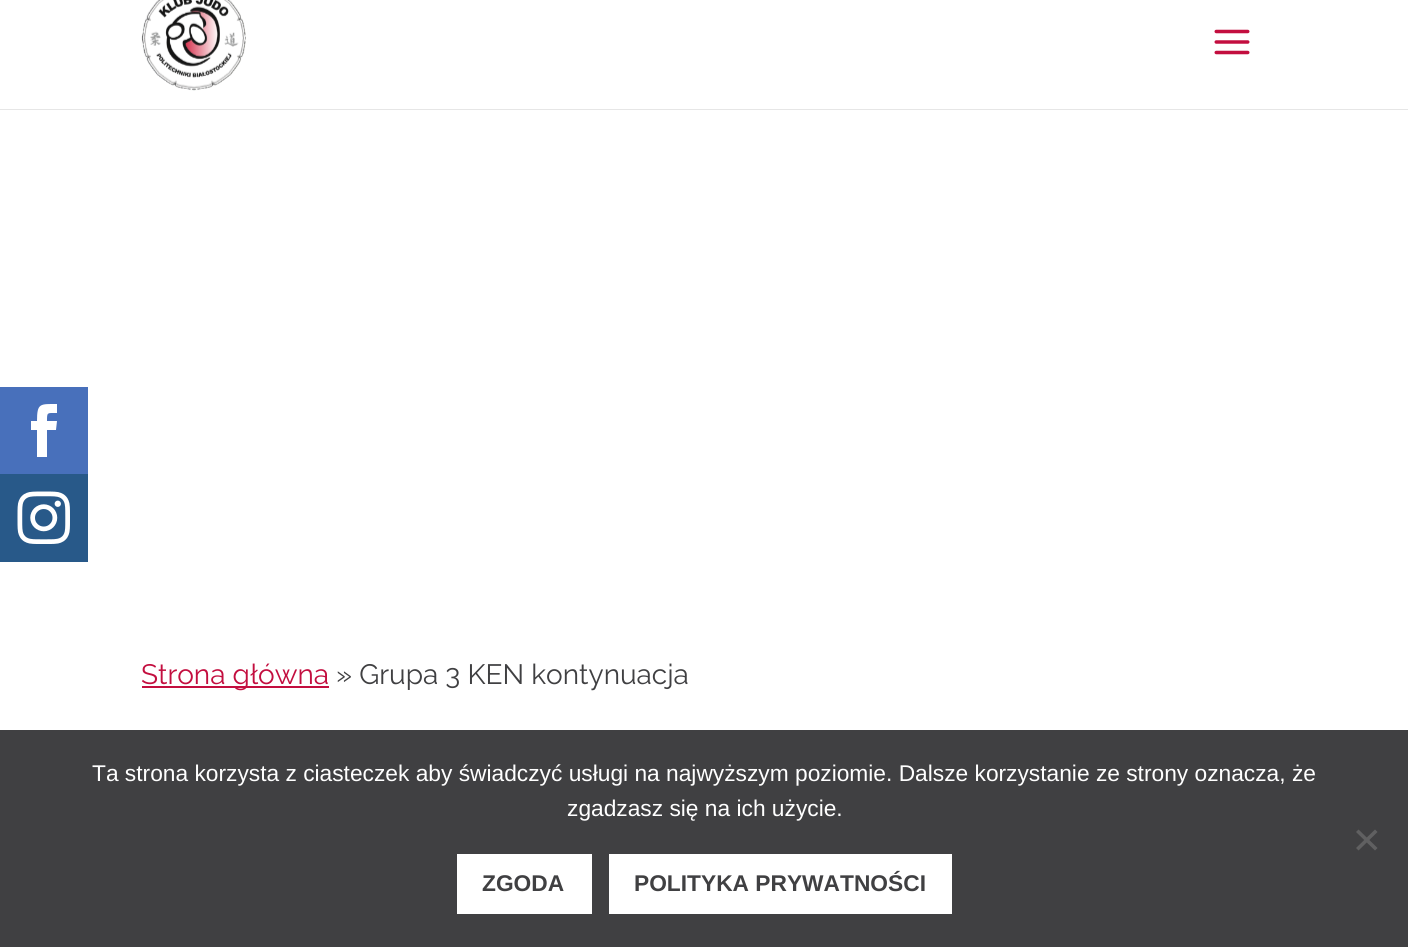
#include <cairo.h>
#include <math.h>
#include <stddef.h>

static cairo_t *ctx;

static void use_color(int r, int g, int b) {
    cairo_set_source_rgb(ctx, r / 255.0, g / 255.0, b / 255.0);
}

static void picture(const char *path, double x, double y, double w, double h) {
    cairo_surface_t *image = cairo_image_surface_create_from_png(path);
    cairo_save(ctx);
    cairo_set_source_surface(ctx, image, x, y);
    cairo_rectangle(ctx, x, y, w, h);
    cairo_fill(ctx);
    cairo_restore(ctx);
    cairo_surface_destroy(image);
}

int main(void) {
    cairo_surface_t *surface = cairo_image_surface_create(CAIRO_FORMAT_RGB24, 1408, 947);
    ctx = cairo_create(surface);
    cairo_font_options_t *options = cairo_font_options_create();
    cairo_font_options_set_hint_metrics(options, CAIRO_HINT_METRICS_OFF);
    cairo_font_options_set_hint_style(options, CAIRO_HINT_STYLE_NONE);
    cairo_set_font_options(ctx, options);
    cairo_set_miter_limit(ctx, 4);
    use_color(255, 255, 255);
    cairo_paint(ctx);
    use_color(230, 230, 230);
    cairo_new_path(ctx);
    cairo_move_to(ctx, 0, 108);
    cairo_line_to(ctx, 0, 110);
    cairo_line_to(ctx, 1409, 110);
    cairo_line_to(ctx, 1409, -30);
    cairo_line_to(ctx, 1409, 108);
    cairo_close_path(ctx);
    cairo_fill(ctx);
    use_color(255, 255, 255);
    cairo_rectangle(ctx, 0, 108, 1408, 1);
    cairo_fill(ctx);
    picture("img1.png", 141, 0, 105, 91);
    picture("img2.png", 1214, 29, 36, 26);
    use_color(72, 112, 187);
    cairo_rectangle(ctx, 0, 387, 88, 87);
    cairo_fill(ctx);
    use_color(255, 255, 255);
    cairo_new_path(ctx);
    cairo_move_to(ctx, 37, 457);
    cairo_line_to(ctx, 47, 457);
    cairo_line_to(ctx, 47, 430);
    cairo_line_to(ctx, 56, 430);
    cairo_line_to(ctx, 57, 421);
    cairo_line_to(ctx, 47, 421);
    cairo_curve_to(ctx, 47, 412, 47, 413, 57, 413);
    cairo_line_to(ctx, 57, 404);
    cairo_curve_to(ctx, 40, 404, 37, 403, 37, 421);
    cairo_line_to(ctx, 31, 421);
    cairo_line_to(ctx, 31, 430);
    cairo_line_to(ctx, 37, 430);
    cairo_close_path(ctx);
    cairo_fill(ctx);
    use_color(40, 89, 137);
    cairo_rectangle(ctx, 0, 474, 88, 88);
    cairo_fill(ctx);
    picture("img3.png", 17, 491, 53, 53);
    use_color(195, 14, 63);
    cairo_rectangle(ctx, 142, 686, 187, 2);
    cairo_fill(ctx);
    cairo_select_font_face(ctx, "Raleway", CAIRO_FONT_SLANT_NORMAL, CAIRO_FONT_WEIGHT_NORMAL);
    cairo_set_font_size(ctx, 28);
    cairo_move_to(ctx, 141, 684);
    cairo_show_text(ctx, "Strona główna");
    use_color(64, 64, 66);
    cairo_move_to(ctx, 336, 684);
    cairo_show_text(ctx, "» Grupa 3 KEN kontynuacja");
    cairo_rectangle(ctx, 0, 730, 1408, 217);
    cairo_fill(ctx);
    cairo_select_font_face(ctx, "Liberation Sans", CAIRO_FONT_SLANT_NORMAL, CAIRO_FONT_WEIGHT_NORMAL);
    cairo_set_font_size(ctx, 22.75);
    use_color(255, 255, 255);
    cairo_move_to(ctx, 92, 781);
    cairo_show_text(ctx, "Ta strona korzysta z ciasteczek aby świadczyć usługi na najwyższym poziomie. Dalsze korzystanie ze strony oznacza, że");
    cairo_move_to(ctx, 567, 816);
    cairo_show_text(ctx, "zgadzasz się na ich użycie.");
    use_color(96, 96, 97);
    cairo_new_path(ctx);
    cairo_move_to(ctx, 1375, 829.5);
    cairo_line_to(ctx, 1377.5, 832);
    cairo_line_to(ctx, 1358.5, 850.5);
    cairo_line_to(ctx, 1356, 848);
    cairo_close_path(ctx);
    cairo_fill(ctx);
    cairo_new_path(ctx);
    cairo_move_to(ctx, 1356, 832);
    cairo_line_to(ctx, 1358.5, 829.5);
    cairo_line_to(ctx, 1377.5, 848);
    cairo_line_to(ctx, 1375, 850.5);
    cairo_close_path(ctx);
    cairo_fill(ctx);
    use_color(255, 255, 255);
    cairo_rectangle(ctx, 457, 854, 135, 60);
    cairo_fill(ctx);
    cairo_select_font_face(ctx, "Liberation Sans", CAIRO_FONT_SLANT_NORMAL, CAIRO_FONT_WEIGHT_BOLD);
    use_color(64, 64, 66);
    cairo_move_to(ctx, 482, 891);
    cairo_show_text(ctx, "ZGODA");
    use_color(255, 255, 255);
    cairo_rectangle(ctx, 609, 854, 343, 60);
    cairo_fill(ctx);
    use_color(64, 64, 66);
    cairo_move_to(ctx, 634, 891);
    cairo_show_text(ctx, "POLITYKA PRYWATNOŚCI");
    cairo_surface_write_to_png(surface, "result.png");
    cairo_font_options_destroy(options);
    cairo_destroy(ctx);
    cairo_surface_destroy(surface);
    return 0;
}
